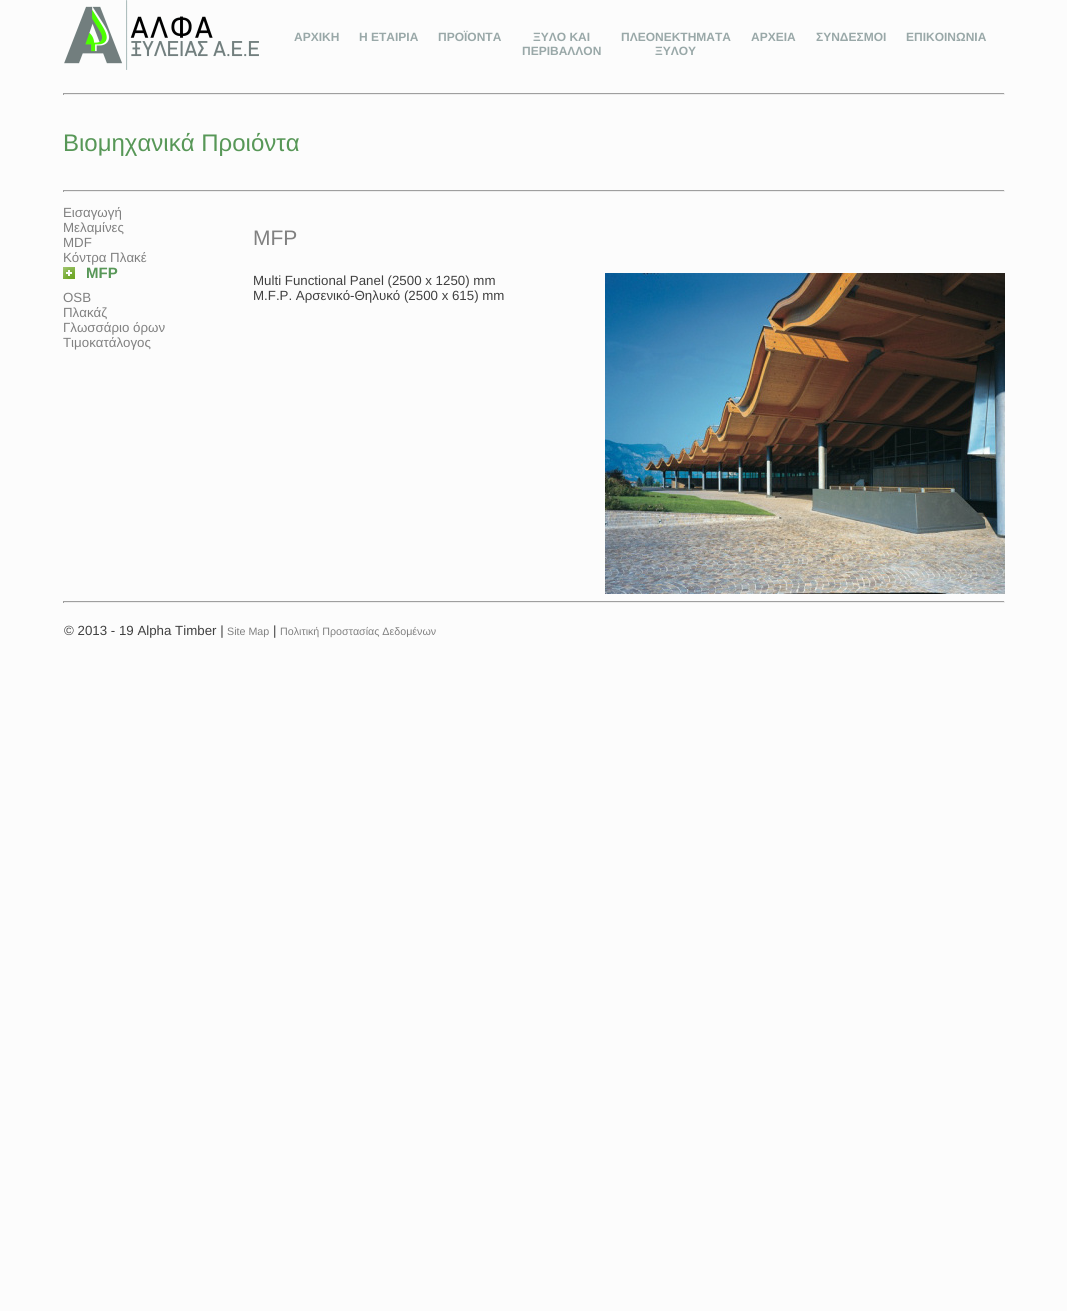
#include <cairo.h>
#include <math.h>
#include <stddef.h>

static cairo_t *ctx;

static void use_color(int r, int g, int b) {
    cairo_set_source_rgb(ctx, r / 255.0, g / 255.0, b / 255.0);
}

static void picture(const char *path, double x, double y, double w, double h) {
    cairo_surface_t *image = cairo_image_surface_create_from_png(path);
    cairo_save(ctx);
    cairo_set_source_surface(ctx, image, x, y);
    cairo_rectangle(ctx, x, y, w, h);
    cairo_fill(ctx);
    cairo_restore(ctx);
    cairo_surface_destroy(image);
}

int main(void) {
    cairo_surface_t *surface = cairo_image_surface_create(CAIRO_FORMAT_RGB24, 1067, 1311);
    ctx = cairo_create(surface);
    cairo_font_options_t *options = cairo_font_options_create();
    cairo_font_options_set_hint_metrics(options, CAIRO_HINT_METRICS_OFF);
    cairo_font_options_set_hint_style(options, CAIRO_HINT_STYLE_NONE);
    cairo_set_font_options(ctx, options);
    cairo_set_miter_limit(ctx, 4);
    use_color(252, 252, 252);
    cairo_paint(ctx);
    picture("img1.png", 64, 0, 195, 70);
    cairo_select_font_face(ctx, "Liberation Sans", CAIRO_FONT_SLANT_NORMAL, CAIRO_FONT_WEIGHT_BOLD);
    cairo_set_font_size(ctx, 12);
    use_color(153, 168, 168);
    cairo_move_to(ctx, 294, 41);
    cairo_show_text(ctx, "ΑΡΧΙΚΗ");
    cairo_move_to(ctx, 359, 41);
    cairo_show_text(ctx, "Η ΕΤΑΙΡΙΑ");
    cairo_move_to(ctx, 438, 41);
    cairo_show_text(ctx, "ΠΡΟΪΟΝΤΑ");
    cairo_move_to(ctx, 533, 41);
    cairo_show_text(ctx, "ΞΥΛΟ ΚΑΙ");
    cairo_move_to(ctx, 522, 55);
    cairo_show_text(ctx, "ΠΕΡΙΒΑΛΛΟΝ");
    cairo_move_to(ctx, 621, 41);
    cairo_show_text(ctx, "ΠΛΕΟΝΕΚΤΗΜΑΤΑ");
    cairo_move_to(ctx, 655, 55);
    cairo_show_text(ctx, "ΞΥΛΟΥ");
    cairo_move_to(ctx, 751, 41);
    cairo_show_text(ctx, "ΑΡΧΕΙΑ");
    cairo_move_to(ctx, 816, 41);
    cairo_show_text(ctx, "ΣΥΝΔΕΣΜΟΙ");
    cairo_move_to(ctx, 906, 41);
    cairo_show_text(ctx, "ΕΠΙΚΟΙΝΩΝΙΑ");
    use_color(159, 159, 159);
    cairo_rectangle(ctx, 63, 93, 942, 1);
    cairo_fill(ctx);
    use_color(238, 238, 238);
    cairo_rectangle(ctx, 1004, 93, 1, 2);
    cairo_fill(ctx);
    cairo_rectangle(ctx, 63, 94, 942, 1);
    cairo_fill(ctx);
    use_color(159, 159, 159);
    cairo_rectangle(ctx, 63, 93, 1, 2);
    cairo_fill(ctx);
    cairo_select_font_face(ctx, "Liberation Sans", CAIRO_FONT_SLANT_NORMAL, CAIRO_FONT_WEIGHT_NORMAL);
    cairo_set_font_size(ctx, 24);
    use_color(87, 151, 87);
    cairo_move_to(ctx, 63, 151);
    cairo_show_text(ctx, "Βιομηχανικά Προιόντα");
    use_color(159, 159, 159);
    cairo_rectangle(ctx, 63, 190, 942, 1);
    cairo_fill(ctx);
    use_color(238, 238, 238);
    cairo_rectangle(ctx, 1004, 190, 1, 2);
    cairo_fill(ctx);
    cairo_rectangle(ctx, 63, 191, 942, 1);
    cairo_fill(ctx);
    use_color(159, 159, 159);
    cairo_rectangle(ctx, 63, 190, 1, 2);
    cairo_fill(ctx);
    cairo_set_font_size(ctx, 13.3);
    use_color(128, 128, 128);
    cairo_move_to(ctx, 63, 217);
    cairo_show_text(ctx, "Εισαγωγή");
    cairo_move_to(ctx, 63, 232);
    cairo_show_text(ctx, "Μελαμίνες");
    cairo_move_to(ctx, 63, 247);
    cairo_show_text(ctx, "MDF");
    cairo_move_to(ctx, 63, 262);
    cairo_show_text(ctx, "Κόντρα Πλακέ");
    picture("img2.png", 63, 267, 13, 13);
    cairo_select_font_face(ctx, "Liberation Sans", CAIRO_FONT_SLANT_NORMAL, CAIRO_FONT_WEIGHT_BOLD);
    cairo_set_font_size(ctx, 15);
    use_color(87, 151, 87);
    cairo_move_to(ctx, 86, 278);
    cairo_show_text(ctx, "MFP");
    cairo_select_font_face(ctx, "Liberation Sans", CAIRO_FONT_SLANT_NORMAL, CAIRO_FONT_WEIGHT_NORMAL);
    cairo_set_font_size(ctx, 13.3);
    use_color(128, 128, 128);
    cairo_move_to(ctx, 63, 302);
    cairo_show_text(ctx, "OSB");
    cairo_move_to(ctx, 63, 317);
    cairo_show_text(ctx, "Πλακάζ");
    cairo_move_to(ctx, 63, 332);
    cairo_show_text(ctx, "Γλωσσάριο όρων");
    cairo_move_to(ctx, 63, 347);
    cairo_show_text(ctx, "Τιμοκατάλογος");
    cairo_set_font_size(ctx, 21);
    cairo_move_to(ctx, 253, 245);
    cairo_show_text(ctx, "MFP");
    cairo_set_font_size(ctx, 13.3);
    use_color(64, 64, 64);
    cairo_move_to(ctx, 253, 285);
    cairo_show_text(ctx, "Multi Functional Panel (2500 x 1250) mm");
    picture("img3.png", 605, 273, 400, 321);
    cairo_move_to(ctx, 253, 300);
    cairo_show_text(ctx, "M.F.P. Αρσενικό-Θηλυκό (2500 x 615) mm");
    use_color(159, 159, 159);
    cairo_rectangle(ctx, 63, 601, 942, 1);
    cairo_fill(ctx);
    use_color(238, 238, 238);
    cairo_rectangle(ctx, 1004, 601, 1, 2);
    cairo_fill(ctx);
    cairo_rectangle(ctx, 63, 602, 942, 1);
    cairo_fill(ctx);
    use_color(159, 159, 159);
    cairo_rectangle(ctx, 63, 601, 1, 2);
    cairo_fill(ctx);
    use_color(64, 64, 64);
    cairo_move_to(ctx, 64, 635);
    cairo_show_text(ctx, "© 2013 - 19 Alpha Timber |");
    cairo_set_font_size(ctx, 10.7);
    use_color(128, 128, 128);
    cairo_move_to(ctx, 227, 635);
    cairo_show_text(ctx, "Site Map");
    cairo_set_font_size(ctx, 13.3);
    use_color(64, 64, 64);
    cairo_move_to(ctx, 273, 635);
    cairo_show_text(ctx, "|");
    cairo_set_font_size(ctx, 10.7);
    use_color(128, 128, 128);
    cairo_move_to(ctx, 280, 635);
    cairo_show_text(ctx, "Πολιτική Προστασίας Δεδομένων");
    cairo_surface_write_to_png(surface, "result.png");
    cairo_font_options_destroy(options);
    cairo_destroy(ctx);
    cairo_surface_destroy(surface);
    return 0;
}
